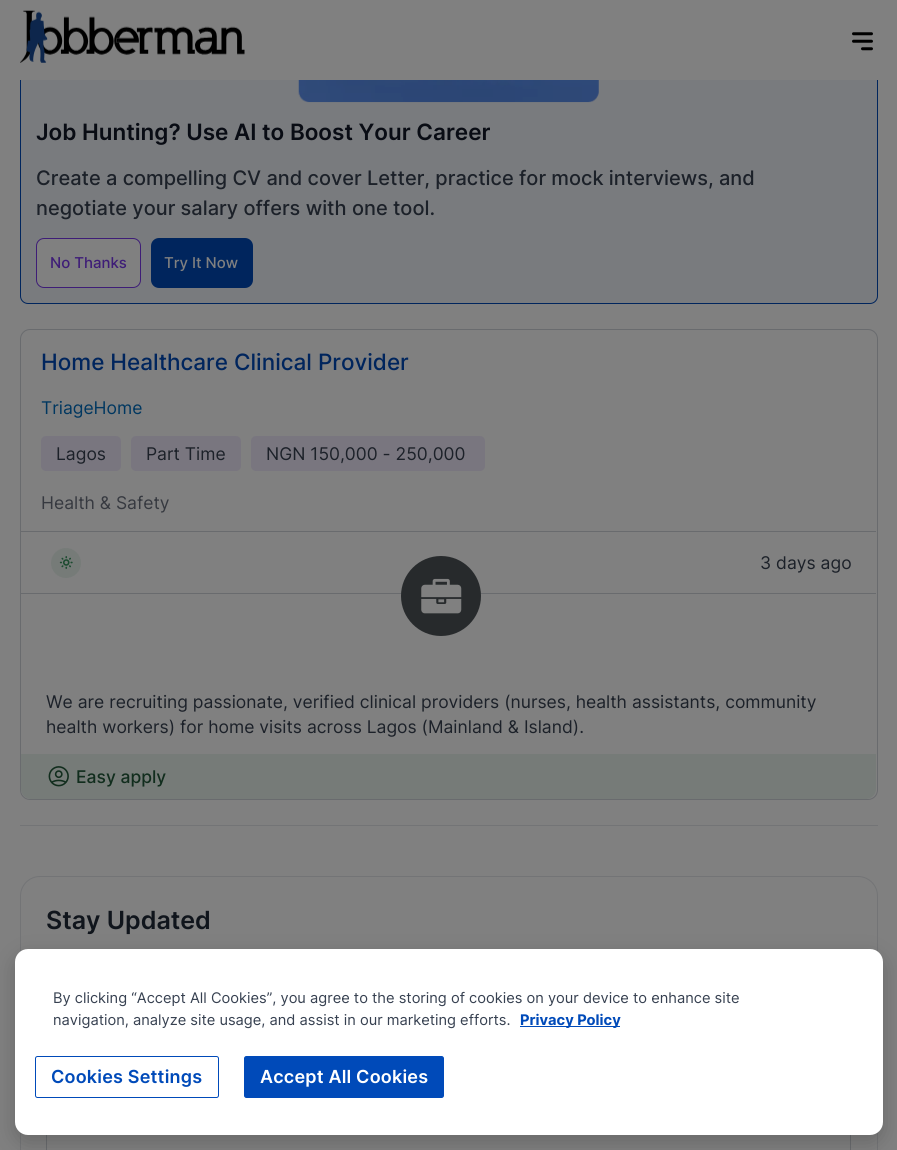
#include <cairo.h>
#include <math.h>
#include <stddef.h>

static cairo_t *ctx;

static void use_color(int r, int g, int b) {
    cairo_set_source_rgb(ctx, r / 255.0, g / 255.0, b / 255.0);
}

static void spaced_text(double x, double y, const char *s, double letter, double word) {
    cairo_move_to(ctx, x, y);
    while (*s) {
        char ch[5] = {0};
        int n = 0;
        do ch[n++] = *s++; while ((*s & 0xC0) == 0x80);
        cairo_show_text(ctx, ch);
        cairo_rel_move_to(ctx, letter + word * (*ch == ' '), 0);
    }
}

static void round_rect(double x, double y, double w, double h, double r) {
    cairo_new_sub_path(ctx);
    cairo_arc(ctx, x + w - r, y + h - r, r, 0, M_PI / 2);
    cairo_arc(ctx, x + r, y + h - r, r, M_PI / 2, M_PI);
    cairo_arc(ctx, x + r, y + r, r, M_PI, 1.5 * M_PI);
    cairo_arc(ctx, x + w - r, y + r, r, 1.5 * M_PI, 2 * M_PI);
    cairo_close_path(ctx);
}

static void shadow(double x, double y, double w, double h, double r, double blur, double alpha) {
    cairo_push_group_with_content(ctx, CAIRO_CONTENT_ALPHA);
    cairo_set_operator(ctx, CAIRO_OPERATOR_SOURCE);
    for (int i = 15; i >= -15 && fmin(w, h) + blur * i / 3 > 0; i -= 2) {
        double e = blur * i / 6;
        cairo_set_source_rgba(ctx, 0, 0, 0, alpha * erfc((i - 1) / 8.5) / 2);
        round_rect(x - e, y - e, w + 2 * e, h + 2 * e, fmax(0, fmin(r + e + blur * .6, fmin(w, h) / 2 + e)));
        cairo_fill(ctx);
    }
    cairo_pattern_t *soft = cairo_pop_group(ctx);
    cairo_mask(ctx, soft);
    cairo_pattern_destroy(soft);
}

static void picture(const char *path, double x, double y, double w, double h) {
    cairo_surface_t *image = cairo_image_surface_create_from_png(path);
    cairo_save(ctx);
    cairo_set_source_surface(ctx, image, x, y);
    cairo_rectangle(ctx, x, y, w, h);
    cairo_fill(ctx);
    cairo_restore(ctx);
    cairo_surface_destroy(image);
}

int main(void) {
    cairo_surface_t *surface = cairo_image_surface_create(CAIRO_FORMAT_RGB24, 897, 1150);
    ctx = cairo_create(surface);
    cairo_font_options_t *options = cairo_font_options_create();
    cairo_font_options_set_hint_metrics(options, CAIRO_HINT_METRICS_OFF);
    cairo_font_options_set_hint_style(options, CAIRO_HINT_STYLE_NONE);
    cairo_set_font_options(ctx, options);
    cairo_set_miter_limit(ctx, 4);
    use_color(128, 128, 128);
    cairo_paint(ctx);
    use_color(121, 123, 126);
    round_rect(20.5, -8.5, 857, 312, 7.5);
    cairo_fill_preserve(ctx);
    use_color(0, 37, 93);
    cairo_set_line_width(ctx, 1);
    cairo_stroke(ctx);
    use_color(128, 128, 128);
    cairo_rectangle(ctx, 20, 0, 858, 80);
    cairo_fill(ctx);
    picture("img1.png", 20, 10, 225, 53);
    picture("img2.png", 852, 32, 21, 19);
    picture("img3.png", 298, 80, 301, 23);
    cairo_select_font_face(ctx, "Inter SemiBold", CAIRO_FONT_SLANT_NORMAL, CAIRO_FONT_WEIGHT_NORMAL);
    cairo_set_font_size(ctx, 22.5);
    use_color(9, 12, 20);
    cairo_move_to(ctx, 36, 140);
    cairo_show_text(ctx, "Job Hunting? Use AI to Boost Your Career");
    cairo_select_font_face(ctx, "Inter Medium", CAIRO_FONT_SLANT_NORMAL, CAIRO_FONT_WEIGHT_NORMAL);
    cairo_set_font_size(ctx, 20);
    use_color(28, 33, 41);
    cairo_move_to(ctx, 36, 185);
    cairo_show_text(ctx, "Create a compelling CV and cover Letter, practice for mock interviews, and");
    cairo_move_to(ctx, 36, 215);
    cairo_show_text(ctx, "negotiate your salary offers with one tool.");
    use_color(128, 128, 128);
    round_rect(36.5, 238.5, 104, 49, 7.5);
    cairo_fill_preserve(ctx);
    use_color(62, 29, 119);
    cairo_stroke(ctx);
    cairo_set_font_size(ctx, 15);
    cairo_move_to(ctx, 50, 268);
    cairo_show_text(ctx, "No Thanks");
    use_color(0, 37, 93);
    round_rect(151, 238, 102, 50, 8);
    cairo_fill(ctx);
    use_color(128, 128, 128);
    cairo_move_to(ctx, 164, 268);
    cairo_show_text(ctx, "Try It Now");
    round_rect(20.5, 329.5, 857, 470, 9.5);
    use_color(105, 107, 110);
    cairo_stroke(ctx);
    cairo_set_font_size(ctx, 22.5);
    use_color(0, 37, 93);
    cairo_move_to(ctx, 41, 370);
    cairo_show_text(ctx, "Home Healthcare Clinical Provider");
    cairo_select_font_face(ctx, "Inter", CAIRO_FONT_SLANT_NORMAL, CAIRO_FONT_WEIGHT_NORMAL);
    cairo_set_font_size(ctx, 17.5);
    use_color(0, 55, 96);
    cairo_move_to(ctx, 41, 414);
    cairo_show_text(ctx, "TriageHome");
    use_color(121, 118, 127);
    round_rect(41, 436, 80, 35, 5);
    cairo_fill(ctx);
    use_color(28, 33, 41);
    cairo_move_to(ctx, 56, 460);
    cairo_show_text(ctx, "Lagos");
    use_color(121, 118, 127);
    round_rect(131, 436, 110, 35, 5);
    cairo_fill(ctx);
    use_color(28, 33, 41);
    cairo_move_to(ctx, 146, 460);
    cairo_show_text(ctx, "Part Time");
    use_color(121, 118, 127);
    round_rect(251, 436, 234, 35, 5);
    cairo_fill(ctx);
    use_color(28, 33, 41);
    cairo_move_to(ctx, 266, 460);
    cairo_show_text(ctx, "NGN 150,000 - 250,000");
    use_color(54, 57, 64);
    cairo_move_to(ctx, 41, 509);
    cairo_show_text(ctx, "Health & Safety");
    use_color(105, 107, 110);
    cairo_rectangle(ctx, 21, 531, 855, 1);
    cairo_fill(ctx);
    use_color(118, 123, 120);
    cairo_arc(ctx, 66, 563, 15, 0, 2 * M_PI);
    cairo_fill(ctx);
    picture("img4.png", 59, 556, 14, 13);
    use_color(28, 33, 41);
    cairo_move_to(ctx, 760, 569);
    cairo_show_text(ctx, "3 days ago");
    use_color(105, 107, 110);
    cairo_rectangle(ctx, 21, 593, 855, 1);
    cairo_fill(ctx);
    picture("img5.png", 401, 556, 80, 80);
    use_color(28, 33, 41);
    cairo_move_to(ctx, 46, 708);
    cairo_show_text(ctx, "We are recruiting passionate, verified clinical providers (nurses, health assistants, community");
    cairo_move_to(ctx, 46, 733);
    cairo_show_text(ctx, "health workers) for home visits across Lagos (Mainland & Island).");
    use_color(118, 123, 120);
    cairo_new_path(ctx);
    cairo_move_to(ctx, 21, 754);
    cairo_line_to(ctx, 876, 754);
    cairo_line_to(ctx, 876, 789);
    cairo_curve_to(ctx, 876, 794.5, 871.5, 799, 866, 799);
    cairo_line_to(ctx, 31, 799);
    cairo_curve_to(ctx, 25.5, 799, 21, 794.5, 21, 789);
    cairo_close_path(ctx);
    cairo_fill(ctx);
    picture("img6.png", 48, 766, 21, 21);
    cairo_select_font_face(ctx, "Inter Medium", CAIRO_FONT_SLANT_NORMAL, CAIRO_FONT_WEIGHT_NORMAL);
    use_color(17, 45, 29);
    cairo_move_to(ctx, 76, 783);
    cairo_show_text(ctx, "Easy apply");
    use_color(115, 116, 118);
    cairo_rectangle(ctx, 20, 825, 858, 1);
    cairo_fill(ctx);
    round_rect(20.5, 876.5, 857, 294, 19.5);
    cairo_stroke(ctx);
    cairo_select_font_face(ctx, "Inter SemiBold", CAIRO_FONT_SLANT_NORMAL, CAIRO_FONT_WEIGHT_NORMAL);
    cairo_set_font_size(ctx, 25);
    use_color(16, 21, 28);
    cairo_move_to(ctx, 46, 929);
    cairo_show_text(ctx, "Stay Updated");
    cairo_rectangle(ctx, 46.5, 1108.5, 804, 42);
    use_color(105, 107, 110);
    cairo_stroke(ctx);
    use_color(0, 0, 0);
    shadow(15, 956, 868, 187, 13, 10, 0.18);
    use_color(255, 255, 255);
    round_rect(15, 949, 868, 186, 13);
    cairo_fill(ctx);
    cairo_select_font_face(ctx, "Inter", CAIRO_FONT_SLANT_NORMAL, CAIRO_FONT_WEIGHT_NORMAL);
    cairo_set_font_size(ctx, 14.65);
    use_color(55, 65, 81);
    cairo_move_to(ctx, 53, 1003);
    cairo_show_text(ctx, "By clicking “Accept All Cookies”, you agree to the storing of cookies on your device to enhance site");
    cairo_move_to(ctx, 53, 1025);
    cairo_show_text(ctx, "navigation, analyze site usage, and assist in our marketing efforts.");
    use_color(0, 74, 185);
    cairo_rectangle(ctx, 520, 1026, 100, 1);
    cairo_fill(ctx);
    cairo_select_font_face(ctx, "Inter", CAIRO_FONT_SLANT_NORMAL, CAIRO_FONT_WEIGHT_BOLD);
    cairo_move_to(ctx, 520, 1025);
    cairo_show_text(ctx, "Privacy Policy");
    round_rect(35.5, 1056.5, 183, 41, 2);
    cairo_stroke(ctx);
    cairo_select_font_face(ctx, "Inter SemiBold", CAIRO_FONT_SLANT_NORMAL, CAIRO_FONT_WEIGHT_NORMAL);
    cairo_set_font_size(ctx, 18);
    spaced_text(51, 1083, "Cookies Settings", 0.2, 0);
    round_rect(244.5, 1056.5, 199, 41, 2);
    cairo_fill_preserve(ctx);
    cairo_stroke(ctx);
    use_color(255, 255, 255);
    spaced_text(260, 1083, "Accept All Cookies", 0.2, 0);
    cairo_surface_write_to_png(surface, "result.png");
    cairo_font_options_destroy(options);
    cairo_destroy(ctx);
    cairo_surface_destroy(surface);
    return 0;
}
